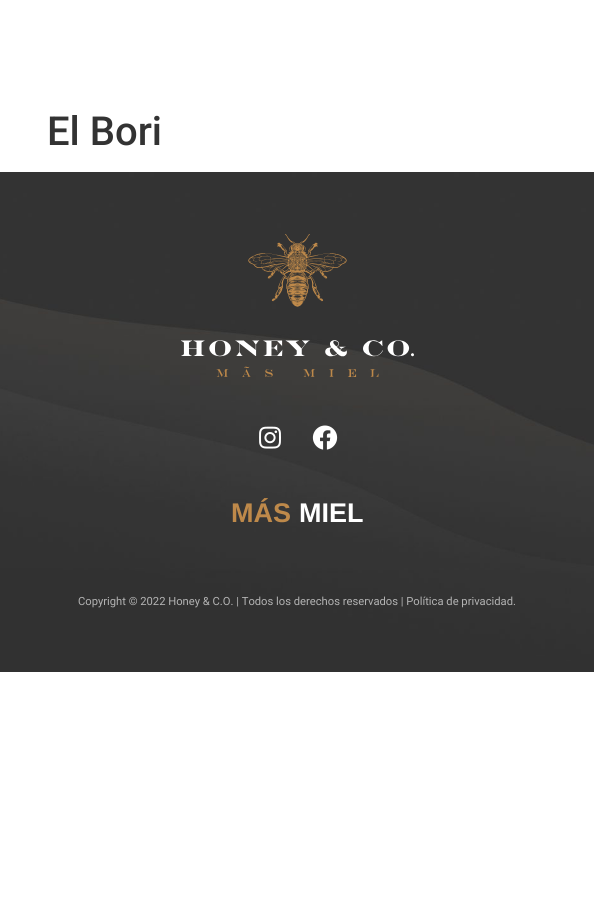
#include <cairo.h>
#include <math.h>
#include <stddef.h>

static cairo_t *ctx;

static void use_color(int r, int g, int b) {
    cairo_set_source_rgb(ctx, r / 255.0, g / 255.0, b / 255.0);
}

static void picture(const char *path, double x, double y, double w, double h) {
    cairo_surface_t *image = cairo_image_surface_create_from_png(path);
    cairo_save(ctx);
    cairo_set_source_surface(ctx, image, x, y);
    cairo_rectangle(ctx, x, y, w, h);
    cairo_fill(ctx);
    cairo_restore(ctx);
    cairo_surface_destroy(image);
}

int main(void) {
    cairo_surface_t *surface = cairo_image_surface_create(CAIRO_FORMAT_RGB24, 594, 901);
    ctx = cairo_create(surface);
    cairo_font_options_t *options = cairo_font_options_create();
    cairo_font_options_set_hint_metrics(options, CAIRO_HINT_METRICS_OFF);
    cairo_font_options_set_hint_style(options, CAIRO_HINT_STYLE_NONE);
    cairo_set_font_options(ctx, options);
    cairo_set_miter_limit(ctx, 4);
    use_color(255, 255, 255);
    cairo_paint(ctx);
    cairo_select_font_face(ctx, "Roboto Medium", CAIRO_FONT_SLANT_NORMAL, CAIRO_FONT_WEIGHT_NORMAL);
    cairo_set_font_size(ctx, 40);
    use_color(51, 51, 51);
    cairo_move_to(ctx, 47, 145);
    cairo_show_text(ctx, "El Bori");
    picture("img1.png", 0, 172, 594, 500);
    picture("img2.png", 181, 234, 233, 143);
    picture("img3.png", 259, 426, 22, 23);
    picture("img4.png", 312, 425, 26, 25);
    cairo_select_font_face(ctx, "Liberation Sans", CAIRO_FONT_SLANT_NORMAL, CAIRO_FONT_WEIGHT_BOLD);
    cairo_set_font_size(ctx, 27);
    use_color(190, 137, 74);
    cairo_move_to(ctx, 231, 522);
    cairo_show_text(ctx, "MÁS");
    use_color(255, 255, 255);
    cairo_move_to(ctx, 299, 522);
    cairo_show_text(ctx, "MIEL");
    cairo_select_font_face(ctx, "Roboto", CAIRO_FONT_SLANT_NORMAL, CAIRO_FONT_WEIGHT_NORMAL);
    cairo_set_font_size(ctx, 11.2);
    use_color(179, 179, 179);
    cairo_move_to(ctx, 78, 605);
    cairo_show_text(ctx, "Copyright © 2022 Honey & C.O. | Todos los derechos reservados | Política de privacidad.");
    cairo_surface_write_to_png(surface, "result.png");
    cairo_font_options_destroy(options);
    cairo_destroy(ctx);
    cairo_surface_destroy(surface);
    return 0;
}
